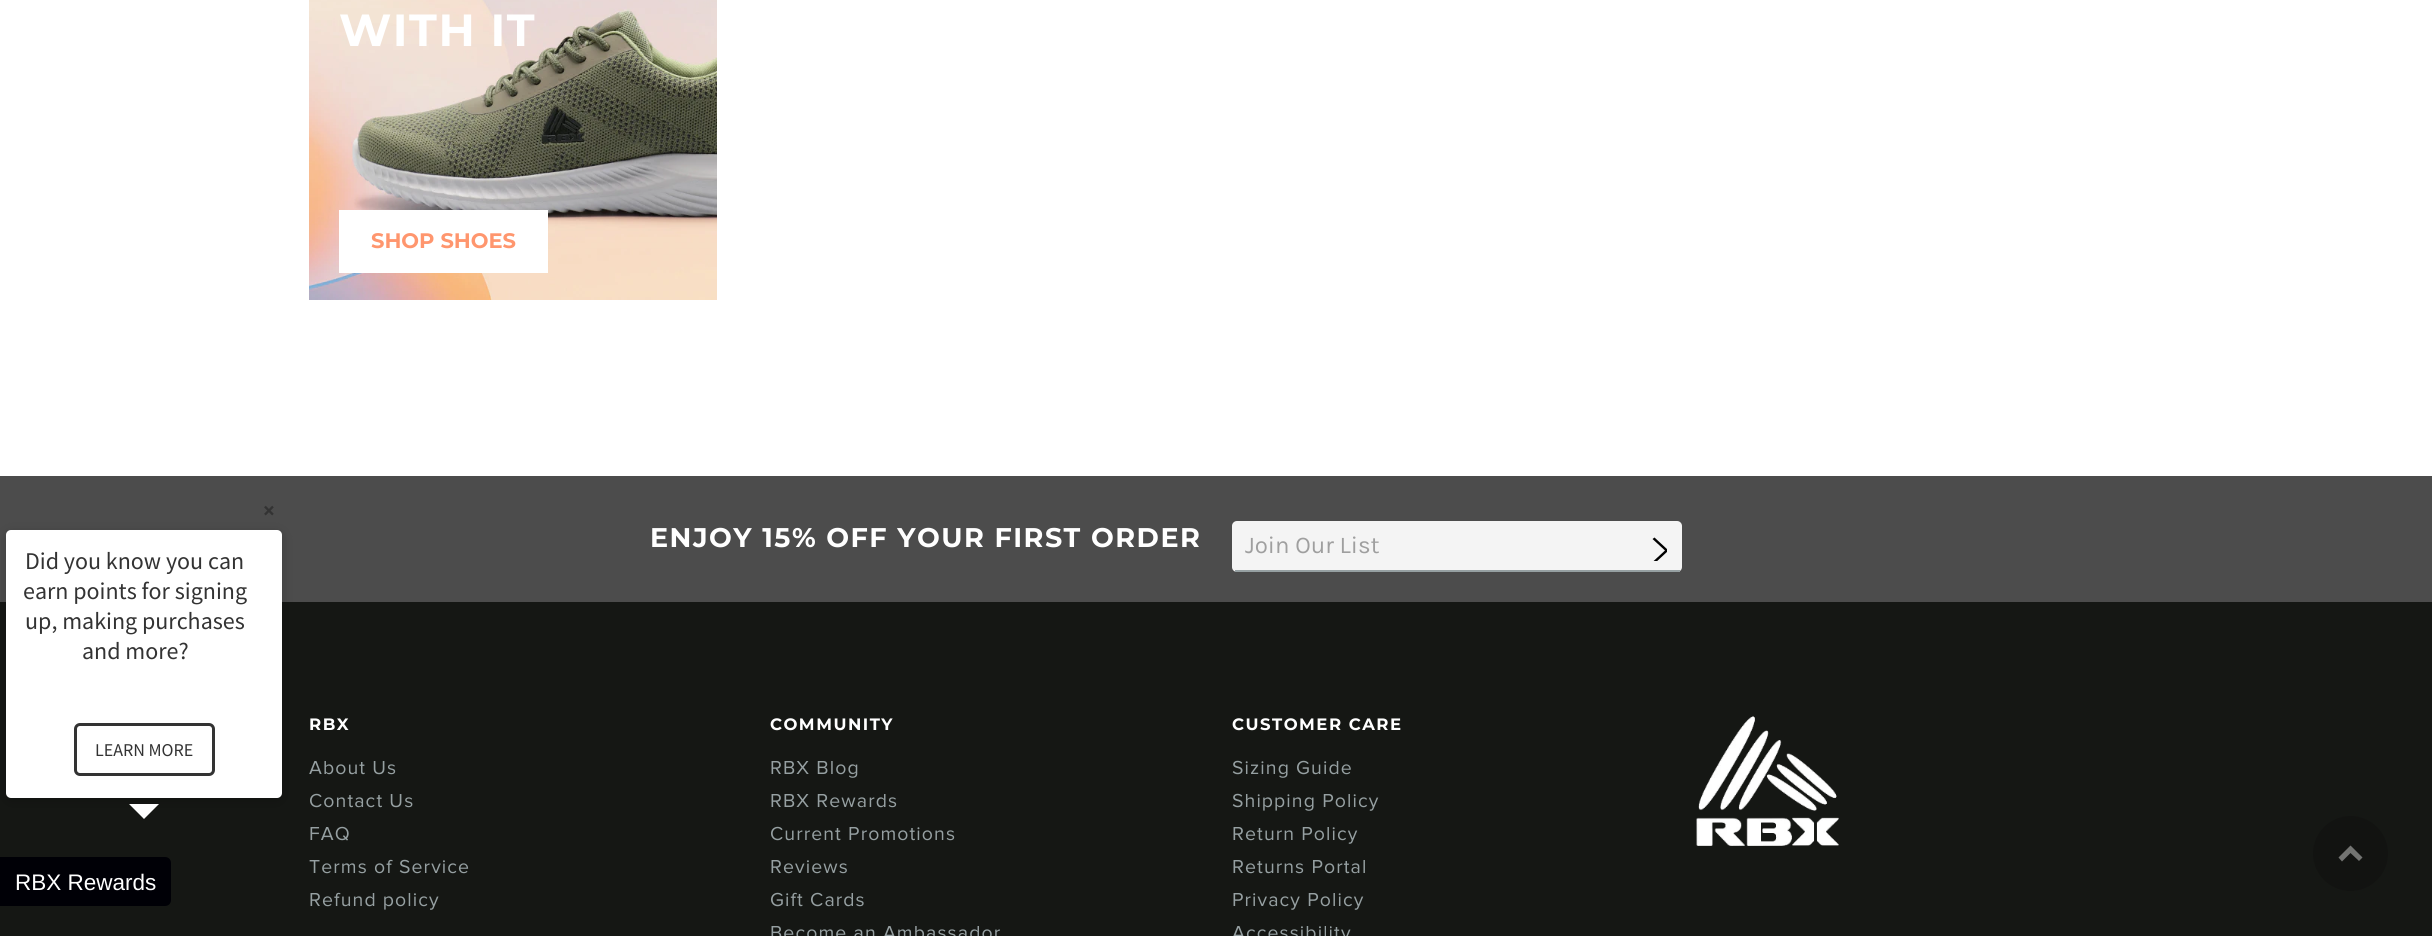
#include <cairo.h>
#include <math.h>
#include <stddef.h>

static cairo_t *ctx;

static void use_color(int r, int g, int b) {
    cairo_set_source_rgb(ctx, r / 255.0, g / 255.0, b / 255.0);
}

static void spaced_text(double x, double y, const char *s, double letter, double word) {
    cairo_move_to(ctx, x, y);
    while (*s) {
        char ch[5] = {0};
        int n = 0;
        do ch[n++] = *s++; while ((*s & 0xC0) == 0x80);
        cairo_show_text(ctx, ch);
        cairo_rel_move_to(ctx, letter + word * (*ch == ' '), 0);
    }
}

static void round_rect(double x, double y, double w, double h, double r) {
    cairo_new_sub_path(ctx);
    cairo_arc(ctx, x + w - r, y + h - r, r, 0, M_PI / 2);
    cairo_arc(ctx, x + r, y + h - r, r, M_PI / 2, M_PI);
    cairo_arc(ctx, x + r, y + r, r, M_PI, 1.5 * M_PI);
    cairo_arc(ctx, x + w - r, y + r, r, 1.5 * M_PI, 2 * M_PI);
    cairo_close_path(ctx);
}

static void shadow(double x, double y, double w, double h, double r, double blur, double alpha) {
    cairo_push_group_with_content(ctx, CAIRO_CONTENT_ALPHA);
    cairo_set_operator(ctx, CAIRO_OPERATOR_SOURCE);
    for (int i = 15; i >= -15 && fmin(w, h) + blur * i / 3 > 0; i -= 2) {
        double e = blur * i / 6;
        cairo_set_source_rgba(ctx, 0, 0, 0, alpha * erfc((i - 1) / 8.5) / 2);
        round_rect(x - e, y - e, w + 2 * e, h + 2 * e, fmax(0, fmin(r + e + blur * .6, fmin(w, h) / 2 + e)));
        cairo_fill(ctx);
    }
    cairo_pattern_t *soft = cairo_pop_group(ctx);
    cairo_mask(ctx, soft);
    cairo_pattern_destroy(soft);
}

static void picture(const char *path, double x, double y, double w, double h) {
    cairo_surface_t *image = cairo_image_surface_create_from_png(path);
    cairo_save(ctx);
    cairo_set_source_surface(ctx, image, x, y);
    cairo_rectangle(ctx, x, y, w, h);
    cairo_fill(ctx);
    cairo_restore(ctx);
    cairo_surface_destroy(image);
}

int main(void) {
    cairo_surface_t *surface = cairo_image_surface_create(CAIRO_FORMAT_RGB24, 2432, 936);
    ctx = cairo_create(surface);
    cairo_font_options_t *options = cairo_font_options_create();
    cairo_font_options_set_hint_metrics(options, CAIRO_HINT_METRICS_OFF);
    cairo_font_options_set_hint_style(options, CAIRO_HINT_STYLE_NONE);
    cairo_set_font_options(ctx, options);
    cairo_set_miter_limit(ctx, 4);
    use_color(255, 255, 255);
    cairo_paint(ctx);
    use_color(76, 76, 76);
    cairo_rectangle(ctx, 0, 476, 2432, 126);
    cairo_fill(ctx);
    cairo_select_font_face(ctx, "Source Sans Pro", CAIRO_FONT_SLANT_NORMAL, CAIRO_FONT_WEIGHT_BOLD);
    cairo_set_font_size(ctx, 22.5);
    use_color(51, 51, 51);
    cairo_move_to(ctx, 263, 518);
    cairo_show_text(ctx, "×");
    use_color(21, 23, 20);
    cairo_rectangle(ctx, 0, 602, 2432, 334);
    cairo_fill(ctx);
    use_color(0, 0, 0);
    shadow(6, 533, 276, 268, 5, 6, 0.2);
    use_color(255, 255, 255);
    round_rect(6, 530, 276, 268, 5);
    cairo_fill(ctx);
    cairo_select_font_face(ctx, "Source Sans Pro", CAIRO_FONT_SLANT_NORMAL, CAIRO_FONT_WEIGHT_NORMAL);
    cairo_set_font_size(ctx, 24);
    use_color(51, 51, 51);
    cairo_move_to(ctx, 25, 569);
    cairo_show_text(ctx, "Did you know you can");
    cairo_move_to(ctx, 23, 599);
    cairo_show_text(ctx, "earn points for signing");
    cairo_move_to(ctx, 25, 629);
    cairo_show_text(ctx, "up, making purchases");
    cairo_move_to(ctx, 82, 659);
    cairo_show_text(ctx, "and more?");
    round_rect(75.5, 724.5, 138, 50, 4.5);
    cairo_set_line_width(ctx, 3);
    cairo_stroke(ctx);
    cairo_set_font_size(ctx, 18);
    cairo_move_to(ctx, 95, 756);
    cairo_show_text(ctx, "LEARN MORE");
    use_color(255, 255, 255);
    cairo_new_path(ctx);
    cairo_move_to(ctx, 129, 804);
    cairo_line_to(ctx, 159, 804);
    cairo_line_to(ctx, 144, 819);
    cairo_close_path(ctx);
    cairo_fill(ctx);
    use_color(0, 0, 6);
    cairo_new_path(ctx);
    cairo_move_to(ctx, 0, 857);
    cairo_line_to(ctx, 165, 857);
    cairo_curve_to(ctx, 168.5, 857, 171, 859.5, 171, 863);
    cairo_line_to(ctx, 171, 900);
    cairo_curve_to(ctx, 171, 903.5, 168.5, 906, 165, 906);
    cairo_line_to(ctx, 0, 906);
    cairo_close_path(ctx);
    cairo_fill(ctx);
    cairo_select_font_face(ctx, "Liberation Sans", CAIRO_FONT_SLANT_NORMAL, CAIRO_FONT_WEIGHT_NORMAL);
    cairo_set_font_size(ctx, 22.5);
    use_color(255, 255, 255);
    cairo_move_to(ctx, 15, 890);
    cairo_show_text(ctx, "RBX Rewards");
    picture("img1.png", 309, 0, 408, 300);
    cairo_select_font_face(ctx, "Montserrat", CAIRO_FONT_SLANT_NORMAL, CAIRO_FONT_WEIGHT_BOLD);
    cairo_set_font_size(ctx, 45);
    spaced_text(339, 46, "WITH IT", 1.5, 0);
    cairo_rectangle(ctx, 339, 210, 209, 63);
    cairo_fill(ctx);
    cairo_set_font_size(ctx, 21);
    use_color(255, 150, 110);
    cairo_move_to(ctx, 371, 248);
    cairo_show_text(ctx, "SHOP SHOES");
    cairo_set_font_size(ctx, 27);
    use_color(255, 255, 255);
    spaced_text(650, 547, "ENJOY 15% OFF YOUR FIRST ORDER", 1.5, 0);
    use_color(244, 244, 244);
    round_rect(1232, 521, 450, 51, 5);
    cairo_fill(ctx);
    use_color(150, 160, 162);
    cairo_rectangle(ctx, 1235, 570, 445, 2);
    cairo_fill(ctx);
    cairo_select_font_face(ctx, "Karla", CAIRO_FONT_SLANT_NORMAL, CAIRO_FONT_WEIGHT_NORMAL);
    cairo_set_font_size(ctx, 24);
    use_color(159, 159, 159);
    cairo_move_to(ctx, 1245, 553);
    cairo_show_text(ctx, "Join Our List");
    cairo_save(ctx);
    cairo_rectangle(ctx, 1646, 536, 21, 25);
    cairo_clip(ctx);
    use_color(0, 0, 0);
    cairo_new_path(ctx);
    cairo_move_to(ctx, 1652.5, 539);
    cairo_line_to(ctx, 1654.5, 537.5);
    cairo_line_to(ctx, 1668.5, 550.5);
    cairo_line_to(ctx, 1654.5, 563.5);
    cairo_line_to(ctx, 1652.5, 562);
    cairo_line_to(ctx, 1665, 550.5);
    cairo_close_path(ctx);
    cairo_fill(ctx);
    cairo_restore(ctx);
    cairo_select_font_face(ctx, "Montserrat", CAIRO_FONT_SLANT_NORMAL, CAIRO_FONT_WEIGHT_BOLD);
    cairo_set_font_size(ctx, 16.5);
    use_color(255, 255, 255);
    spaced_text(309, 730, "RBX", 1.5, 0);
    cairo_select_font_face(ctx, "Proxima Nova", CAIRO_FONT_SLANT_NORMAL, CAIRO_FONT_WEIGHT_NORMAL);
    cairo_set_font_size(ctx, 19.5);
    use_color(150, 160, 162);
    spaced_text(309, 774, "About Us", 1.1, 0);
    spaced_text(309, 807, "Contact Us", 1.1, 0);
    spaced_text(309, 840, "FAQ", 1.1, 0);
    spaced_text(309, 873, "Terms of Service", 1.1, 0);
    spaced_text(309, 906, "Refund policy", 1.1, 0);
    cairo_select_font_face(ctx, "Montserrat", CAIRO_FONT_SLANT_NORMAL, CAIRO_FONT_WEIGHT_BOLD);
    cairo_set_font_size(ctx, 16.5);
    use_color(255, 255, 255);
    spaced_text(770, 730, "COMMUNITY", 1.5, 0);
    cairo_select_font_face(ctx, "Proxima Nova", CAIRO_FONT_SLANT_NORMAL, CAIRO_FONT_WEIGHT_NORMAL);
    cairo_set_font_size(ctx, 19.5);
    use_color(150, 160, 162);
    spaced_text(770, 774, "RBX Blog", 1.1, 0);
    spaced_text(770, 807, "RBX Rewards", 1.1, 0);
    spaced_text(770, 840, "Current Promotions", 1.1, 0);
    spaced_text(770, 873, "Reviews", 1.1, 0);
    spaced_text(770, 906, "Gift Cards", 1.1, 0);
    spaced_text(770, 939, "Become an Ambassador", 1.1, 0);
    cairo_select_font_face(ctx, "Montserrat", CAIRO_FONT_SLANT_NORMAL, CAIRO_FONT_WEIGHT_BOLD);
    cairo_set_font_size(ctx, 16.5);
    use_color(255, 255, 255);
    spaced_text(1232, 730, "CUSTOMER CARE", 1.5, 0);
    cairo_select_font_face(ctx, "Proxima Nova", CAIRO_FONT_SLANT_NORMAL, CAIRO_FONT_WEIGHT_NORMAL);
    cairo_set_font_size(ctx, 19.5);
    use_color(150, 160, 162);
    spaced_text(1232, 774, "Sizing Guide", 1.1, 0);
    spaced_text(1232, 807, "Shipping Policy", 1.1, 0);
    spaced_text(1232, 840, "Return Policy", 1.1, 0);
    spaced_text(1232, 873, "Returns Portal", 1.1, 0);
    spaced_text(1232, 906, "Privacy Policy", 1.1, 0);
    spaced_text(1232, 939, "Accessibility", 1.1, 0);
    picture("img2.png", 1696, 716, 143, 130);
    use_color(18, 19, 17);
    cairo_arc(ctx, 2350.5, 853.5, 37.5, 0, 2 * M_PI);
    cairo_fill(ctx);
    use_color(115, 116, 114);
    cairo_new_path(ctx);
    cairo_move_to(ctx, 2350.5, 845.5);
    cairo_line_to(ctx, 2362.5, 857.5);
    cairo_line_to(ctx, 2359, 861);
    cairo_line_to(ctx, 2350.5, 853);
    cairo_line_to(ctx, 2342, 861.5);
    cairo_line_to(ctx, 2338.5, 857.5);
    cairo_close_path(ctx);
    cairo_fill(ctx);
    cairo_surface_write_to_png(surface, "result.png");
    cairo_font_options_destroy(options);
    cairo_destroy(ctx);
    cairo_surface_destroy(surface);
    return 0;
}
